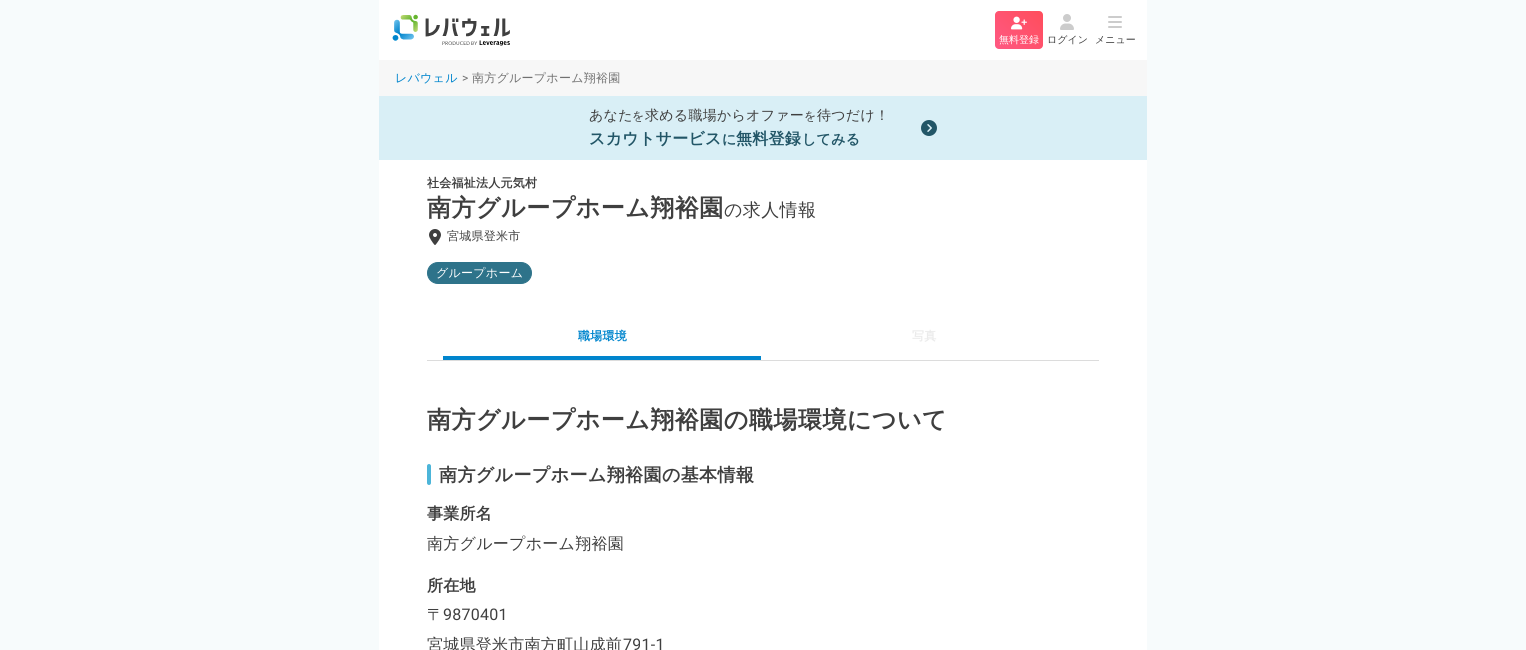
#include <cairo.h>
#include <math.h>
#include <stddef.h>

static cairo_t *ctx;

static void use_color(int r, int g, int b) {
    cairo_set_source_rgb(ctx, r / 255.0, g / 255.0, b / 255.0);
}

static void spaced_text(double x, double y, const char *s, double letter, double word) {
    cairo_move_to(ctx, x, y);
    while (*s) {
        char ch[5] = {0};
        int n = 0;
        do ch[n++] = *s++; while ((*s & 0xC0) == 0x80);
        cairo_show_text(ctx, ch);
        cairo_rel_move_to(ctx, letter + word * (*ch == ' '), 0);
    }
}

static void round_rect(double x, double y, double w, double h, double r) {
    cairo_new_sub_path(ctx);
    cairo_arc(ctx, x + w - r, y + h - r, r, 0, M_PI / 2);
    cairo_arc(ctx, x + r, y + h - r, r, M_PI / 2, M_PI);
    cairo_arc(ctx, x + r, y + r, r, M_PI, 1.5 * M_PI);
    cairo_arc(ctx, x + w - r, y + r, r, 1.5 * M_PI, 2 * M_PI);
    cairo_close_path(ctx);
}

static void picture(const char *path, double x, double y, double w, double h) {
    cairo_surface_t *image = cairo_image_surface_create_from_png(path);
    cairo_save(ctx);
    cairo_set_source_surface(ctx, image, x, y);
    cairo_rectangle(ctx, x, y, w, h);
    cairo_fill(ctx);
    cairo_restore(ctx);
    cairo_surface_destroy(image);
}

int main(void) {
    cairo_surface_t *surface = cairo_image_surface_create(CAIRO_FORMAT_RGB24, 1526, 650);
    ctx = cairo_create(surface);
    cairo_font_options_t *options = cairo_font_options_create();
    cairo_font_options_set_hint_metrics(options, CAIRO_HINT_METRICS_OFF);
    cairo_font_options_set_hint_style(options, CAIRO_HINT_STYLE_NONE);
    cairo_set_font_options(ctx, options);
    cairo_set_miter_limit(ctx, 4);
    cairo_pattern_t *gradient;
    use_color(247, 251, 252);
    cairo_paint(ctx);
    use_color(255, 255, 255);
    cairo_rectangle(ctx, 379, 0, 768, 650);
    cairo_fill(ctx);
    picture("img1.png", 392, 14, 118, 32);
    gradient = cairo_pattern_create_linear(998, 52, 1041, 9);
    cairo_pattern_add_color_stop_rgba(gradient, 0, 1, 0.349, 0.514, 1);
    cairo_pattern_add_color_stop_rgba(gradient, 1, 1, 0.302, 0.357, 1);
    cairo_set_source(ctx, gradient);
    cairo_pattern_destroy(gradient);
    round_rect(995, 11, 48, 38, 4);
    cairo_fill(ctx);
    picture("img2.png", 1011, 16, 16, 14);
    cairo_select_font_face(ctx, "WenQuanYi Zen Hei Medium", CAIRO_FONT_SLANT_NORMAL, CAIRO_FONT_WEIGHT_NORMAL);
    cairo_set_font_size(ctx, 10);
    use_color(255, 255, 255);
    cairo_move_to(ctx, 999, 43);
    cairo_show_text(ctx, "無料登録");
    picture("img3.png", 1060, 14, 14, 16);
    use_color(63, 63, 63);
    cairo_move_to(ctx, 1047, 43);
    cairo_show_text(ctx, "ログイン");
    picture("img4.png", 1108, 16, 14, 12);
    cairo_move_to(ctx, 1095, 43);
    cairo_show_text(ctx, "メニュー");
    use_color(247, 247, 247);
    cairo_rectangle(ctx, 379, 60, 768, 36);
    cairo_fill(ctx);
    cairo_set_font_size(ctx, 12);
    use_color(0, 133, 205);
    spaced_text(395, 82, "レバウェル", 0.25, 0);
    cairo_select_font_face(ctx, "Roboto", CAIRO_FONT_SLANT_NORMAL, CAIRO_FONT_WEIGHT_NORMAL);
    use_color(113, 113, 113);
    spaced_text(462, 82, ">", 0.25, 0);
    cairo_select_font_face(ctx, "WenQuanYi Zen Hei Medium", CAIRO_FONT_SLANT_NORMAL, CAIRO_FONT_WEIGHT_NORMAL);
    spaced_text(472, 82, "南方グループホーム翔裕園", 0.25, 0);
    use_color(217, 239, 246);
    cairo_rectangle(ctx, 379, 96, 768, 64);
    cairo_fill(ctx);
    cairo_set_font_size(ctx, 14);
    use_color(63, 63, 63);
    spaced_text(589, 120, "あなた", 0.25, 0);
    cairo_set_font_size(ctx, 12);
    spaced_text(632, 120, "を", 0.25, 0);
    cairo_set_font_size(ctx, 14);
    spaced_text(645, 120, "求める職場からオファー", 0.25, 0);
    cairo_set_font_size(ctx, 12);
    spaced_text(804, 120, "を", 0.25, 0);
    cairo_set_font_size(ctx, 14);
    spaced_text(817, 120, "待つだけ！", 0.25, 0);
    cairo_select_font_face(ctx, "WenQuanYi Zen Hei", CAIRO_FONT_SLANT_NORMAL, CAIRO_FONT_WEIGHT_BOLD);
    cairo_set_font_size(ctx, 16);
    use_color(34, 86, 103);
    spaced_text(589, 144, "スカウトサービス", 0.25, 0);
    cairo_set_font_size(ctx, 14);
    spaced_text(722, 144, "に", 0.25, 0);
    cairo_set_font_size(ctx, 16);
    spaced_text(736, 144, "無料登録", 0.25, 0);
    cairo_set_font_size(ctx, 14);
    spaced_text(802, 144, "してみる", 0.25, 0);
    picture("img5.png", 921, 120, 16, 16);
    cairo_set_font_size(ctx, 12);
    use_color(63, 63, 63);
    spaced_text(427, 187, "社会福祉法人元気村", 0.25, 0);
    cairo_set_font_size(ctx, 24);
    spaced_text(427, 216, "南方グループホーム翔裕園", 0.5, 0);
    cairo_select_font_face(ctx, "WenQuanYi Zen Hei Medium", CAIRO_FONT_SLANT_NORMAL, CAIRO_FONT_WEIGHT_NORMAL);
    cairo_set_font_size(ctx, 18);
    spaced_text(724, 216, "の求人情報", 0.4, 0);
    picture("img6.png", 429, 229, 12, 16);
    cairo_set_font_size(ctx, 12);
    spaced_text(447, 240, "宮城県登米市", 0.25, 0);
    use_color(46, 115, 138);
    round_rect(427.5, 262.5, 104, 21, 10.5);
    cairo_fill_preserve(ctx);
    cairo_set_line_width(ctx, 1);
    cairo_stroke(ctx);
    use_color(255, 255, 255);
    spaced_text(436, 277, "グループホーム", 0.25, 0);
    use_color(220, 220, 220);
    cairo_rectangle(ctx, 427, 360, 672, 1);
    cairo_fill(ctx);
    use_color(0, 133, 205);
    cairo_rectangle(ctx, 443, 356, 318, 4);
    cairo_fill(ctx);
    cairo_select_font_face(ctx, "WenQuanYi Zen Hei", CAIRO_FONT_SLANT_NORMAL, CAIRO_FONT_WEIGHT_BOLD);
    spaced_text(578, 340, "職場環境", 0.25, 0);
    use_color(235, 235, 235);
    spaced_text(912, 340, "写真", 0.25, 0);
    cairo_set_font_size(ctx, 24);
    use_color(63, 63, 63);
    spaced_text(427, 428, "南方グループホーム翔裕園の職場環境について", 0.5, 0);
    use_color(76, 181, 217);
    round_rect(427, 464, 4, 21, 2);
    cairo_fill(ctx);
    cairo_set_font_size(ctx, 18);
    use_color(63, 63, 63);
    spaced_text(439, 481, "南方グループホーム翔裕園の基本情報", 0.4, 0);
    cairo_set_font_size(ctx, 16);
    spaced_text(427, 519, "事業所名", 0.25, 0);
    cairo_select_font_face(ctx, "WenQuanYi Zen Hei Medium", CAIRO_FONT_SLANT_NORMAL, CAIRO_FONT_WEIGHT_NORMAL);
    spaced_text(427, 549, "南方グループホーム翔裕園", 0.25, 0);
    cairo_select_font_face(ctx, "WenQuanYi Zen Hei", CAIRO_FONT_SLANT_NORMAL, CAIRO_FONT_WEIGHT_BOLD);
    spaced_text(427, 591, "所在地", 0.25, 0);
    cairo_select_font_face(ctx, "WenQuanYi Zen Hei Medium", CAIRO_FONT_SLANT_NORMAL, CAIRO_FONT_WEIGHT_NORMAL);
    spaced_text(427, 620, "〒", 0.25, 0);
    cairo_select_font_face(ctx, "Roboto", CAIRO_FONT_SLANT_NORMAL, CAIRO_FONT_WEIGHT_NORMAL);
    spaced_text(443, 620, "9870401", 0.25, 0);
    cairo_select_font_face(ctx, "WenQuanYi Zen Hei Medium", CAIRO_FONT_SLANT_NORMAL, CAIRO_FONT_WEIGHT_NORMAL);
    spaced_text(427, 650, "宮城県登米市南方町山成前", 0.25, 0);
    cairo_select_font_face(ctx, "Roboto", CAIRO_FONT_SLANT_NORMAL, CAIRO_FONT_WEIGHT_NORMAL);
    spaced_text(623, 650, "791-1", 0.25, 0);
    cairo_surface_write_to_png(surface, "result.png");
    cairo_font_options_destroy(options);
    cairo_destroy(ctx);
    cairo_surface_destroy(surface);
    return 0;
}
